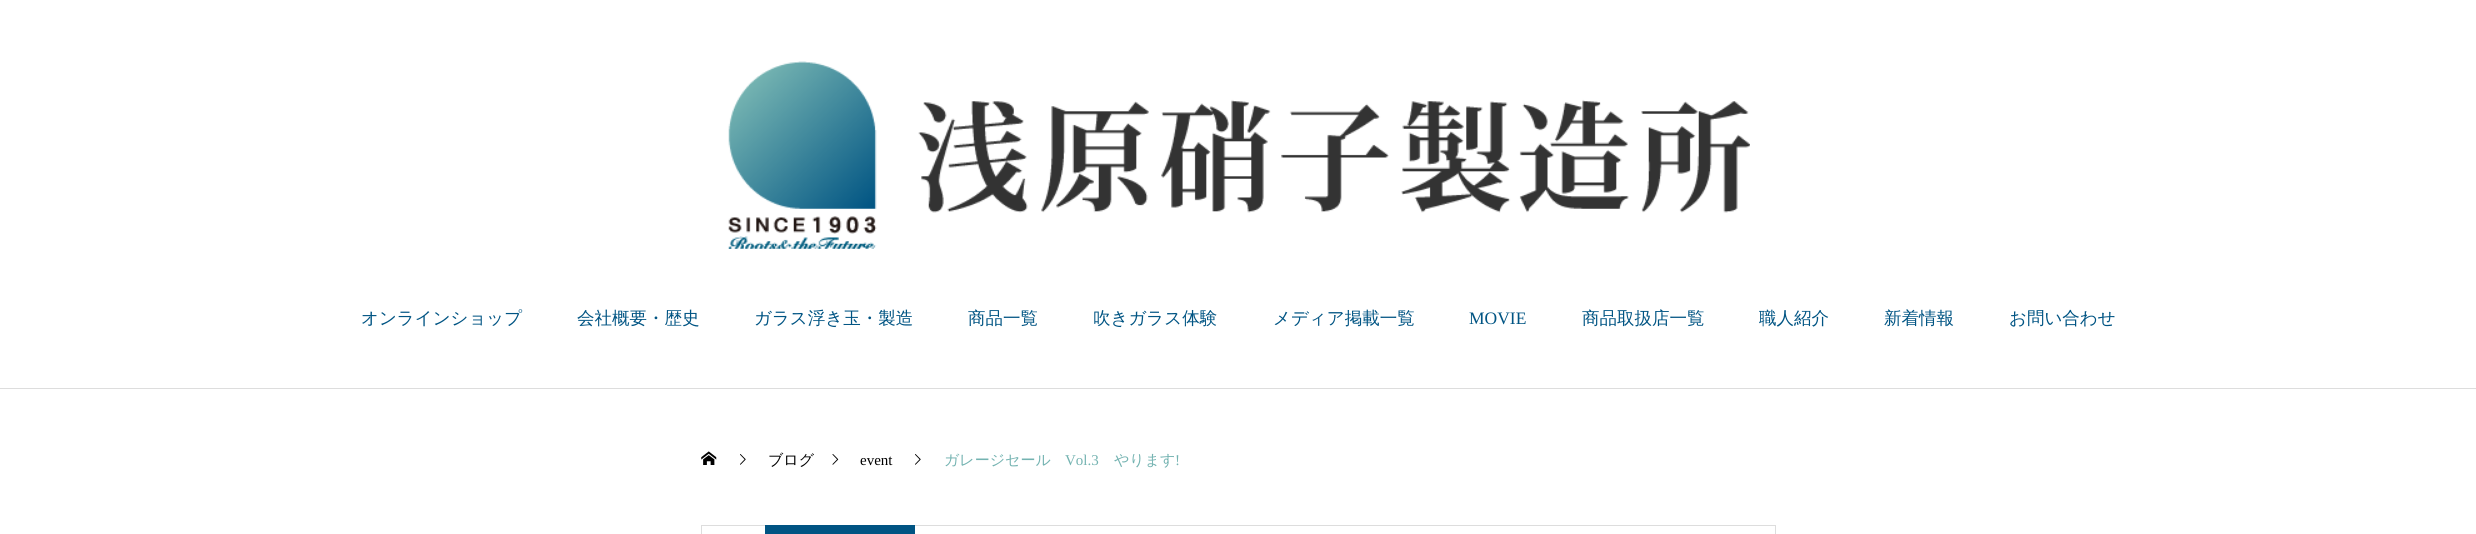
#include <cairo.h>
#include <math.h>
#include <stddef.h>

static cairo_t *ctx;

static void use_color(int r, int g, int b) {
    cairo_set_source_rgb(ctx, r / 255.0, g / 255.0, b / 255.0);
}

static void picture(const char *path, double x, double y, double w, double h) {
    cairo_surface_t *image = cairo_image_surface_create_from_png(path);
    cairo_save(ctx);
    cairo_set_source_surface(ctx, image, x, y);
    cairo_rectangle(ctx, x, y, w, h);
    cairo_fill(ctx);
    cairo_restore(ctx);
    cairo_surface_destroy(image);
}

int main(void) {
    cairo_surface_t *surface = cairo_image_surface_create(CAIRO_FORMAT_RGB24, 2476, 534);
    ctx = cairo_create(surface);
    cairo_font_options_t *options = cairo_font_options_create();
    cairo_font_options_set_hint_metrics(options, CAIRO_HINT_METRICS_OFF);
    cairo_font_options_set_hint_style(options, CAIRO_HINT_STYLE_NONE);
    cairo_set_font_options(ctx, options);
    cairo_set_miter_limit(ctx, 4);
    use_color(255, 255, 255);
    cairo_paint(ctx);
    picture("img1.png", 728, 61, 1022, 188);
    cairo_select_font_face(ctx, "WenQuanYi Zen Hei Medium", CAIRO_FONT_SLANT_NORMAL, CAIRO_FONT_WEIGHT_NORMAL);
    cairo_set_font_size(ctx, 17.5);
    use_color(0, 84, 131);
    cairo_move_to(ctx, 361, 324);
    cairo_show_text(ctx, "オンラインショップ");
    cairo_move_to(ctx, 577, 324);
    cairo_show_text(ctx, "会社概要・歴史");
    cairo_move_to(ctx, 754, 324);
    cairo_show_text(ctx, "ガラス浮き玉・製造");
    cairo_move_to(ctx, 968, 324);
    cairo_show_text(ctx, "商品一覧");
    cairo_move_to(ctx, 1093, 324);
    cairo_show_text(ctx, "吹きガラス体験");
    cairo_move_to(ctx, 1273, 324);
    cairo_show_text(ctx, "メディア掲載一覧");
    cairo_select_font_face(ctx, "Liberation Serif", CAIRO_FONT_SLANT_NORMAL, CAIRO_FONT_WEIGHT_NORMAL);
    cairo_move_to(ctx, 1469, 324);
    cairo_show_text(ctx, "MOVIE");
    cairo_select_font_face(ctx, "WenQuanYi Zen Hei Medium", CAIRO_FONT_SLANT_NORMAL, CAIRO_FONT_WEIGHT_NORMAL);
    cairo_move_to(ctx, 1582, 324);
    cairo_show_text(ctx, "商品取扱店一覧");
    cairo_move_to(ctx, 1759, 324);
    cairo_show_text(ctx, "職人紹介");
    cairo_move_to(ctx, 1884, 324);
    cairo_show_text(ctx, "新着情報");
    cairo_move_to(ctx, 2009, 324);
    cairo_show_text(ctx, "お問い合わせ");
    use_color(221, 221, 221);
    cairo_rectangle(ctx, 0, 388, 2476, 1);
    cairo_fill(ctx);
    picture("img2.png", 701, 451, 16, 14);
    picture("img3.png", 740, 454, 6, 11);
    cairo_set_font_size(ctx, 15);
    use_color(0, 0, 0);
    cairo_move_to(ctx, 768, 465);
    cairo_show_text(ctx, "ブログ");
    picture("img4.png", 832, 454, 7, 11);
    cairo_select_font_face(ctx, "Liberation Serif", CAIRO_FONT_SLANT_NORMAL, CAIRO_FONT_WEIGHT_NORMAL);
    cairo_move_to(ctx, 860, 465);
    cairo_show_text(ctx, "event");
    picture("img3.png", 915, 454, 6, 11);
    cairo_select_font_face(ctx, "WenQuanYi Zen Hei Medium", CAIRO_FONT_SLANT_NORMAL, CAIRO_FONT_WEIGHT_NORMAL);
    use_color(116, 179, 177);
    cairo_move_to(ctx, 944, 465);
    cairo_show_text(ctx, "ガレージセール");
    cairo_select_font_face(ctx, "Liberation Serif", CAIRO_FONT_SLANT_NORMAL, CAIRO_FONT_WEIGHT_NORMAL);
    cairo_move_to(ctx, 1065, 465);
    cairo_show_text(ctx, "Vol.3");
    cairo_select_font_face(ctx, "WenQuanYi Zen Hei Medium", CAIRO_FONT_SLANT_NORMAL, CAIRO_FONT_WEIGHT_NORMAL);
    cairo_move_to(ctx, 1114, 465);
    cairo_show_text(ctx, "やります");
    cairo_select_font_face(ctx, "Liberation Serif", CAIRO_FONT_SLANT_NORMAL, CAIRO_FONT_WEIGHT_NORMAL);
    cairo_move_to(ctx, 1175, 465);
    cairo_show_text(ctx, "!");
    cairo_rectangle(ctx, 701.5, 525.5, 1074, 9);
    use_color(221, 221, 221);
    cairo_set_line_width(ctx, 1);
    cairo_stroke(ctx);
    use_color(0, 84, 131);
    cairo_rectangle(ctx, 765, 525, 150, 9);
    cairo_fill(ctx);
    cairo_surface_write_to_png(surface, "result.png");
    cairo_font_options_destroy(options);
    cairo_destroy(ctx);
    cairo_surface_destroy(surface);
    return 0;
}
